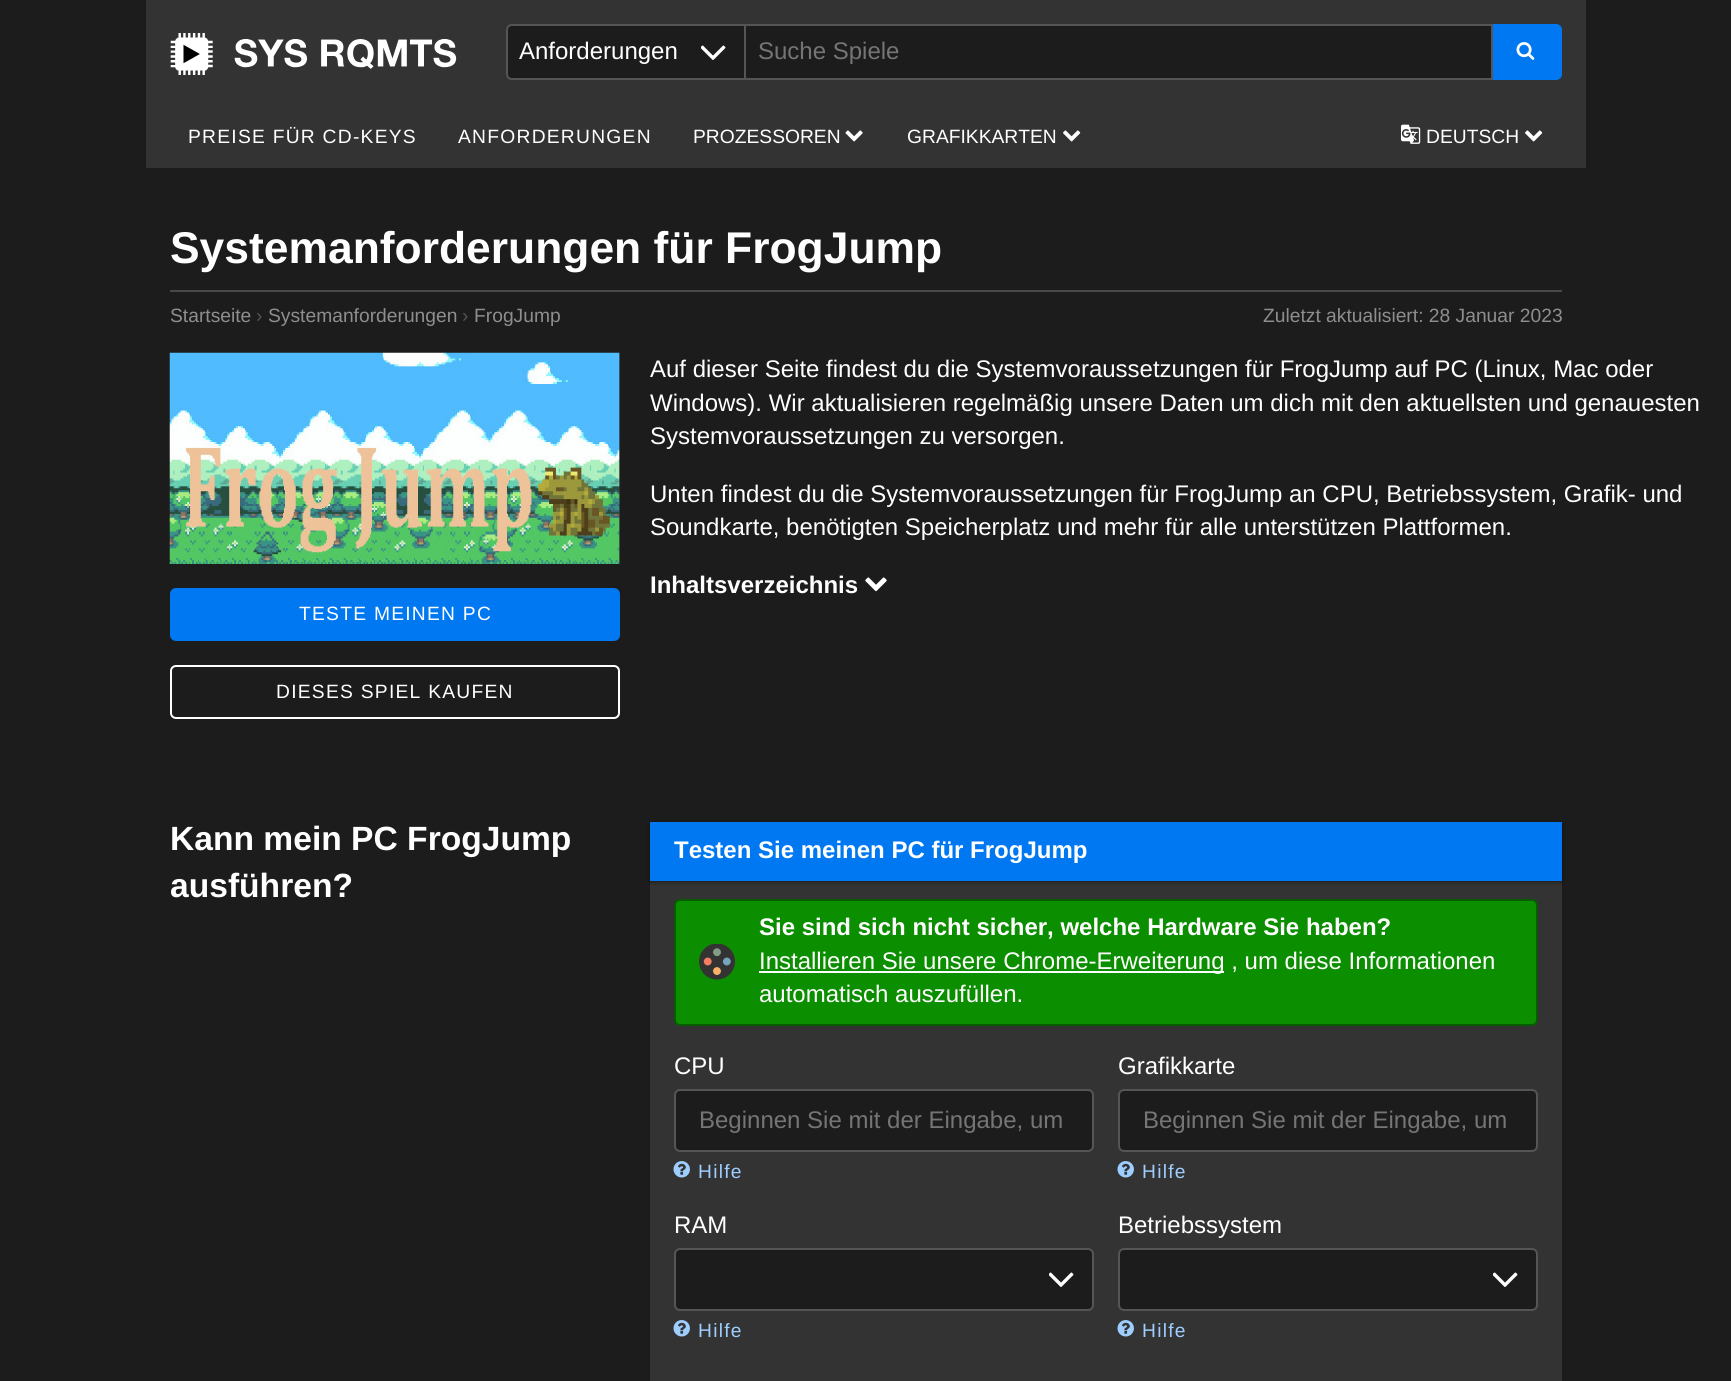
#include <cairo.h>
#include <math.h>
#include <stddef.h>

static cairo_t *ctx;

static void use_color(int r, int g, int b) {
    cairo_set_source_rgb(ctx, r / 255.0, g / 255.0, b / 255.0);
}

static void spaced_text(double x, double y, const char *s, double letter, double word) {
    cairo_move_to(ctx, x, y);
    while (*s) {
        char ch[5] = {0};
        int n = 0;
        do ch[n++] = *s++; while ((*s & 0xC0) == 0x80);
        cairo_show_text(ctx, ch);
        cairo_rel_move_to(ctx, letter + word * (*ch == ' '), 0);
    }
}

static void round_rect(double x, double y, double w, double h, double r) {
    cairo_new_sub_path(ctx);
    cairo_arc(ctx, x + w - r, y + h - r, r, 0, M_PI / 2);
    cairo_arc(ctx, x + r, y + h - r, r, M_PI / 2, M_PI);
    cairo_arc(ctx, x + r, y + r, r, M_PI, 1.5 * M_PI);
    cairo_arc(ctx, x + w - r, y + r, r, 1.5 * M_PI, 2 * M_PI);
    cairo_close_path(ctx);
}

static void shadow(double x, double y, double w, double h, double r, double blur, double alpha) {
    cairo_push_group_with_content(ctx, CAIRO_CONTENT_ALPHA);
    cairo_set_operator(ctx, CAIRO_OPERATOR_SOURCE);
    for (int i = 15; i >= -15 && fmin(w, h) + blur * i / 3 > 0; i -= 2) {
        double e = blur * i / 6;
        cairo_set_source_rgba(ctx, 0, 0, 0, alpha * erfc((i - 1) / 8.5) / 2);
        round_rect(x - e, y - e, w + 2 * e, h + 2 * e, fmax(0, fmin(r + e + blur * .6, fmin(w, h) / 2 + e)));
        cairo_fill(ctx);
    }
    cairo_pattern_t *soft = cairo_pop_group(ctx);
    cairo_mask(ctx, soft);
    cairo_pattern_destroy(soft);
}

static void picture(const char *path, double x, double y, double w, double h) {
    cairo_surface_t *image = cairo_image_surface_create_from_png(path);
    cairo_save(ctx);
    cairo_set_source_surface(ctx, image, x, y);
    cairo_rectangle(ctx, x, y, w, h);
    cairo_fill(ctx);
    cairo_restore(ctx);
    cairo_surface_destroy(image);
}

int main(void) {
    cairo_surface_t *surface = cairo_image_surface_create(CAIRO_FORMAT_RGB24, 1731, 1381);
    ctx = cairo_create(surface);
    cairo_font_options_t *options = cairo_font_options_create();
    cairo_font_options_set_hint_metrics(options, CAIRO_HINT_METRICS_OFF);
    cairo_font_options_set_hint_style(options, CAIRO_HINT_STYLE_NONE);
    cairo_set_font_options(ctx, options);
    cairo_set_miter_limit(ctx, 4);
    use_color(28, 28, 28);
    cairo_paint(ctx);
    use_color(51, 51, 51);
    cairo_rectangle(ctx, 146, 0, 1440, 168);
    cairo_fill(ctx);
    picture("img1.png", 170, 33, 287, 42);
    use_color(28, 28, 28);
    cairo_new_path(ctx);
    cairo_move_to(ctx, 512, 24);
    cairo_line_to(ctx, 746, 24);
    cairo_line_to(ctx, 746, 80);
    cairo_line_to(ctx, 512, 80);
    cairo_curve_to(ctx, 508.5, 80, 506, 77.5, 506, 74);
    cairo_line_to(ctx, 506, 30);
    cairo_curve_to(ctx, 506, 26.5, 508.5, 24, 512, 24);
    cairo_close_path(ctx);
    cairo_fill(ctx);
    picture("img2.png", 701, 45, 25, 15);
    cairo_new_path(ctx);
    cairo_move_to(ctx, 512, 25);
    cairo_line_to(ctx, 745, 25);
    cairo_line_to(ctx, 745, 79);
    cairo_line_to(ctx, 512, 79);
    cairo_curve_to(ctx, 509, 79, 507, 77, 507, 74);
    cairo_line_to(ctx, 507, 30);
    cairo_curve_to(ctx, 507, 27, 509, 25, 512, 25);
    cairo_close_path(ctx);
    cairo_set_source_rgba(ctx, 1, 1, 1, 0.25);
    cairo_stroke(ctx);
    cairo_select_font_face(ctx, "Liberation Sans", CAIRO_FONT_SLANT_NORMAL, CAIRO_FONT_WEIGHT_NORMAL);
    cairo_set_font_size(ctx, 24);
    use_color(255, 255, 255);
    cairo_move_to(ctx, 519, 59);
    cairo_show_text(ctx, "Anforderungen");
    use_color(0, 120, 242);
    cairo_new_path(ctx);
    cairo_move_to(ctx, 1492, 25);
    cairo_line_to(ctx, 1556, 25);
    cairo_curve_to(ctx, 1559, 25, 1561, 27, 1561, 30);
    cairo_line_to(ctx, 1561, 74);
    cairo_curve_to(ctx, 1561, 77, 1559, 79, 1556, 79);
    cairo_line_to(ctx, 1492, 79);
    cairo_close_path(ctx);
    cairo_fill_preserve(ctx);
    cairo_stroke(ctx);
    use_color(28, 28, 28);
    cairo_rectangle(ctx, 745, 25, 747, 54);
    cairo_fill_preserve(ctx);
    use_color(85, 85, 85);
    cairo_stroke(ctx);
    use_color(117, 117, 117);
    cairo_move_to(ctx, 758, 59);
    cairo_show_text(ctx, "Suche Spiele");
    picture("img3.png", 1516, 42, 19, 18);
    cairo_set_font_size(ctx, 19.25);
    use_color(255, 255, 255);
    spaced_text(188, 143, "PREISE FÜR CD-KEYS", 1.25, 0);
    spaced_text(458, 143, "ANFORDERUNGEN", 1.25, 0);
    cairo_move_to(ctx, 693, 143);
    cairo_show_text(ctx, "PROZESSOREN");
    picture("img4.png", 845, 130, 18, 12);
    cairo_move_to(ctx, 907, 143);
    cairo_show_text(ctx, "GRAFIKKARTEN");
    picture("img5.png", 1063, 130, 18, 12);
    picture("img6.png", 1401, 124, 20, 20);
    cairo_move_to(ctx, 1426, 143);
    cairo_show_text(ctx, "DEUTSCH");
    picture("img5.png", 1525, 130, 18, 12);
    cairo_select_font_face(ctx, "Liberation Sans", CAIRO_FONT_SLANT_NORMAL, CAIRO_FONT_WEIGHT_BOLD);
    cairo_set_font_size(ctx, 44.4);
    cairo_move_to(ctx, 170, 263);
    cairo_show_text(ctx, "Systemanforderungen für FrogJump");
    use_color(73, 73, 73);
    cairo_rectangle(ctx, 170, 290, 1392, 2);
    cairo_fill(ctx);
    cairo_select_font_face(ctx, "Liberation Sans", CAIRO_FONT_SLANT_NORMAL, CAIRO_FONT_WEIGHT_NORMAL);
    cairo_set_font_size(ctx, 19.25);
    use_color(142, 142, 142);
    cairo_move_to(ctx, 170, 322);
    cairo_show_text(ctx, "Startseite");
    use_color(85, 85, 85);
    cairo_move_to(ctx, 256, 322);
    cairo_show_text(ctx, "›");
    use_color(142, 142, 142);
    cairo_move_to(ctx, 268, 322);
    cairo_show_text(ctx, "Systemanforderungen");
    use_color(85, 85, 85);
    cairo_move_to(ctx, 462, 322);
    cairo_show_text(ctx, "›");
    use_color(142, 142, 142);
    cairo_move_to(ctx, 474, 322);
    cairo_show_text(ctx, "FrogJump");
    cairo_move_to(ctx, 1263, 322);
    cairo_show_text(ctx, "Zuletzt aktualisiert: 28 Januar 2023");
    cairo_set_font_size(ctx, 24);
    use_color(255, 255, 255);
    cairo_move_to(ctx, 650, 377);
    cairo_show_text(ctx, "Auf dieser Seite findest du die Systemvoraussetzungen für FrogJump auf PC (Linux, Mac oder");
    cairo_move_to(ctx, 650, 411);
    cairo_show_text(ctx, "Windows). Wir aktualisieren regelmäßig unsere Daten um dich mit den aktuellsten und genauesten");
    cairo_move_to(ctx, 650, 444);
    cairo_show_text(ctx, "Systemvoraussetzungen zu versorgen.");
    cairo_move_to(ctx, 650, 502);
    cairo_show_text(ctx, "Unten findest du die Systemvoraussetzungen für FrogJump an CPU, Betriebssystem, Grafik- und");
    cairo_move_to(ctx, 650, 535);
    cairo_show_text(ctx, "Soundkarte, benötigten Speicherplatz und mehr für alle unterstützen Plattformen.");
    cairo_select_font_face(ctx, "Liberation Sans", CAIRO_FONT_SLANT_NORMAL, CAIRO_FONT_WEIGHT_BOLD);
    cairo_move_to(ctx, 650, 593);
    cairo_show_text(ctx, "Inhaltsverzeichnis");
    picture("img7.png", 865, 577, 22, 15);
    use_color(51, 51, 51);
    cairo_rectangle(ctx, 619, 353, 1, 211);
    cairo_fill(ctx);
    picture("img8.png", 169, 352, 451, 212);
    use_color(0, 120, 242);
    round_rect(171, 589, 448, 51, 5);
    cairo_fill_preserve(ctx);
    cairo_stroke(ctx);
    cairo_select_font_face(ctx, "Liberation Sans", CAIRO_FONT_SLANT_NORMAL, CAIRO_FONT_WEIGHT_NORMAL);
    cairo_set_font_size(ctx, 19.25);
    use_color(255, 255, 255);
    spaced_text(299, 620, "TESTE MEINEN PC", 1.25, 0);
    round_rect(171, 666, 448, 52, 5);
    cairo_stroke(ctx);
    spaced_text(276, 698, "DIESES SPIEL KAUFEN", 1.25, 0);
    cairo_select_font_face(ctx, "Liberation Sans", CAIRO_FONT_SLANT_NORMAL, CAIRO_FONT_WEIGHT_BOLD);
    cairo_set_font_size(ctx, 33.6);
    cairo_move_to(ctx, 170, 850);
    cairo_show_text(ctx, "Kann mein PC FrogJump");
    cairo_move_to(ctx, 170, 897);
    cairo_show_text(ctx, "ausführen?");
    use_color(51, 51, 51);
    cairo_rectangle(ctx, 650, 881, 912, 500);
    cairo_fill(ctx);
    use_color(0, 0, 0);
    shadow(650, 824, 912, 58, 0, 2, 0.5);
    use_color(0, 120, 242);
    cairo_rectangle(ctx, 650, 822, 912, 59);
    cairo_fill(ctx);
    cairo_set_font_size(ctx, 24);
    use_color(255, 255, 255);
    cairo_move_to(ctx, 674, 858);
    cairo_show_text(ctx, "Testen Sie meinen PC für FrogJump");
    use_color(11, 142, 0);
    round_rect(675, 900, 862, 125, 5);
    cairo_fill_preserve(ctx);
    use_color(7, 91, 0);
    cairo_stroke(ctx);
    use_color(255, 255, 255);
    cairo_move_to(ctx, 759, 935);
    cairo_show_text(ctx, "Sie sind sich nicht sicher, welche Hardware Sie haben?");
    picture("img9.png", 699, 944, 36, 36);
    cairo_rectangle(ctx, 759, 971, 465, 2);
    cairo_fill(ctx);
    cairo_select_font_face(ctx, "Liberation Sans", CAIRO_FONT_SLANT_NORMAL, CAIRO_FONT_WEIGHT_NORMAL);
    cairo_move_to(ctx, 759, 969);
    cairo_show_text(ctx, "Installieren Sie unsere Chrome-Erweiterung , um diese Informationen");
    cairo_move_to(ctx, 759, 1002);
    cairo_show_text(ctx, "automatisch auszufüllen.");
    cairo_move_to(ctx, 674, 1074);
    cairo_show_text(ctx, "CPU");
    use_color(28, 28, 28);
    round_rect(674, 1089, 420, 63, 6);
    cairo_fill(ctx);
    round_rect(675, 1090, 418, 61, 5);
    cairo_set_source_rgba(ctx, 1, 1, 1, 0.25);
    cairo_stroke(ctx);
    use_color(117, 117, 117);
    cairo_move_to(ctx, 699, 1128);
    cairo_show_text(ctx, "Beginnen Sie mit der Eingabe, um");
    picture("img10.png", 673, 1161, 17, 17);
    cairo_set_font_size(ctx, 19.25);
    use_color(158, 206, 255);
    spaced_text(698, 1178, "Hilfe", 1.25, 0);
    cairo_set_font_size(ctx, 24);
    use_color(255, 255, 255);
    cairo_move_to(ctx, 1118, 1074);
    cairo_show_text(ctx, "Grafikkarte");
    use_color(28, 28, 28);
    round_rect(1118, 1089, 420, 63, 6);
    cairo_fill(ctx);
    round_rect(1119, 1090, 418, 61, 5);
    cairo_set_source_rgba(ctx, 1, 1, 1, 0.25);
    cairo_stroke(ctx);
    use_color(117, 117, 117);
    cairo_move_to(ctx, 1143, 1128);
    cairo_show_text(ctx, "Beginnen Sie mit der Eingabe, um");
    picture("img10.png", 1117, 1161, 17, 17);
    cairo_set_font_size(ctx, 19.25);
    use_color(158, 206, 255);
    spaced_text(1142, 1178, "Hilfe", 1.25, 0);
    cairo_set_font_size(ctx, 24);
    use_color(255, 255, 255);
    cairo_move_to(ctx, 674, 1233);
    cairo_show_text(ctx, "RAM");
    use_color(28, 28, 28);
    round_rect(674, 1248, 420, 63, 6);
    cairo_fill(ctx);
    picture("img2.png", 1049, 1272, 25, 15);
    round_rect(675, 1249, 418, 61, 5);
    cairo_set_source_rgba(ctx, 1, 1, 1, 0.25);
    cairo_stroke(ctx);
    picture("img10.png", 673, 1320, 17, 17);
    cairo_set_font_size(ctx, 19.25);
    use_color(158, 206, 255);
    spaced_text(698, 1337, "Hilfe", 1.25, 0);
    cairo_set_font_size(ctx, 24);
    use_color(255, 255, 255);
    cairo_move_to(ctx, 1118, 1233);
    cairo_show_text(ctx, "Betriebssystem");
    use_color(28, 28, 28);
    round_rect(1118, 1248, 420, 63, 6);
    cairo_fill(ctx);
    picture("img2.png", 1493, 1272, 25, 15);
    round_rect(1119, 1249, 418, 61, 5);
    cairo_set_source_rgba(ctx, 1, 1, 1, 0.25);
    cairo_stroke(ctx);
    picture("img10.png", 1117, 1320, 17, 17);
    cairo_set_font_size(ctx, 19.25);
    use_color(158, 206, 255);
    spaced_text(1142, 1337, "Hilfe", 1.25, 0);
    cairo_surface_write_to_png(surface, "result.png");
    cairo_font_options_destroy(options);
    cairo_destroy(ctx);
    cairo_surface_destroy(surface);
    return 0;
}
